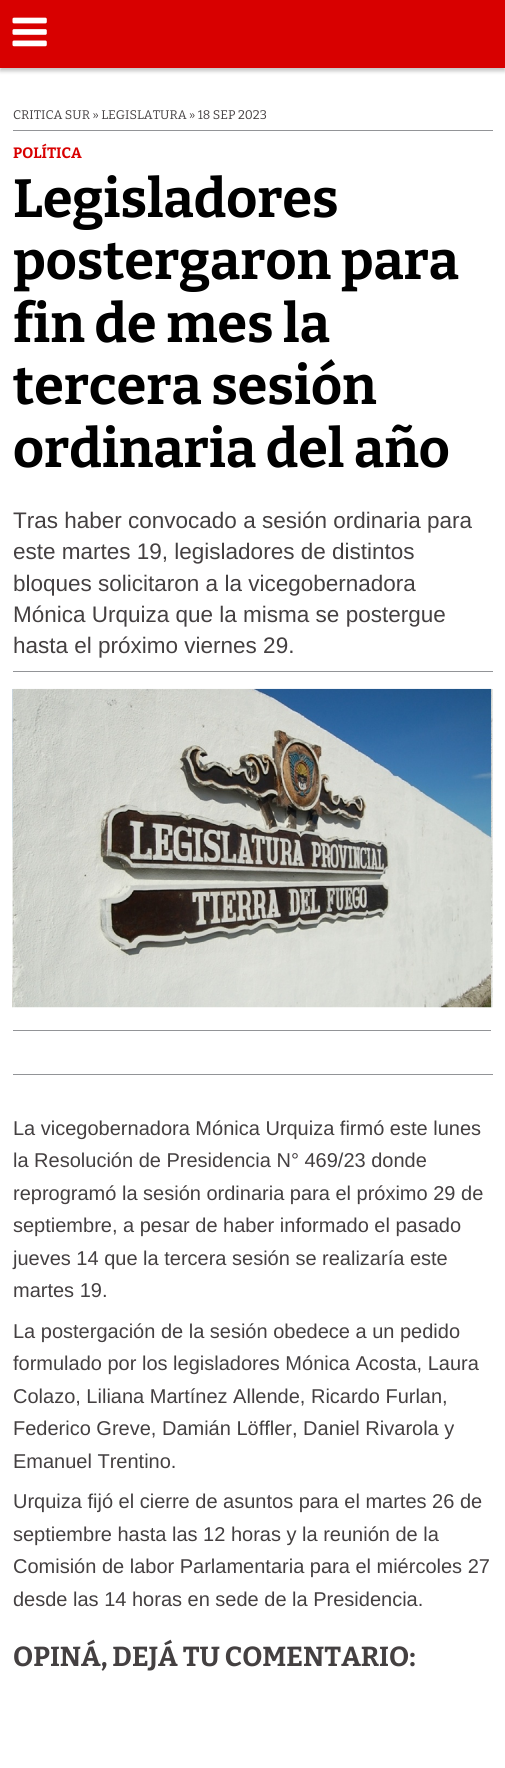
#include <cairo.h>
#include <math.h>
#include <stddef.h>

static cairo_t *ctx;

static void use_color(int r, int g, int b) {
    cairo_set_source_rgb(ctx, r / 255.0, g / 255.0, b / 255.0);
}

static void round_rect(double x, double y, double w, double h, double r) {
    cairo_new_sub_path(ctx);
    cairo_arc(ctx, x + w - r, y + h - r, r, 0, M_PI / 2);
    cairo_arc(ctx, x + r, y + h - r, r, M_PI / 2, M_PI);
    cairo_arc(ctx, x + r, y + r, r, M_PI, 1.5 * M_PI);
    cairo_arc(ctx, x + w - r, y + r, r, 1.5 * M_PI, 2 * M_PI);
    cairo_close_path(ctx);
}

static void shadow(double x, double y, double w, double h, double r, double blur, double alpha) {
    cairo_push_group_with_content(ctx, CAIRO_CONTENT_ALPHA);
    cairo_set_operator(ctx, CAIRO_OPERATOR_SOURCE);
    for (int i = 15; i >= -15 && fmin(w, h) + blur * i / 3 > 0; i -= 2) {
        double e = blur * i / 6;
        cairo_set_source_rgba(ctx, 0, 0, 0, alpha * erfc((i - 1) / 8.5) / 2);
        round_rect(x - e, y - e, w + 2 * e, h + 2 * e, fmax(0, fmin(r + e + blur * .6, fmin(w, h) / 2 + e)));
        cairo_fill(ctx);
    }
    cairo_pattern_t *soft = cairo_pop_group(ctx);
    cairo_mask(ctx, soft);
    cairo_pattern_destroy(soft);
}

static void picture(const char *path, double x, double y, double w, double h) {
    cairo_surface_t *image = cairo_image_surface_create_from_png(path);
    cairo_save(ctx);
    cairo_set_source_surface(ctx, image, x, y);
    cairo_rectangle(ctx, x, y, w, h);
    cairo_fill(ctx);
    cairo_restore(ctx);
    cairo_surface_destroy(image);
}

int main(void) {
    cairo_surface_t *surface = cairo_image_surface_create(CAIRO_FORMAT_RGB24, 505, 1768);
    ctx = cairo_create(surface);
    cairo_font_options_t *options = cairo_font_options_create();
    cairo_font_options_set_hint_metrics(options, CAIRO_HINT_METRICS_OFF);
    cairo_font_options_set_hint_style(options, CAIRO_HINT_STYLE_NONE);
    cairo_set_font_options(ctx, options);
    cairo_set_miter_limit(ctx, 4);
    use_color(255, 255, 255);
    cairo_paint(ctx);
    use_color(50, 50, 50);
    shadow(0, 4, 505, 67, 0, 2, 0.3);
    use_color(216, 0, 0);
    cairo_rectangle(ctx, 0, 0, 505, 68);
    cairo_fill(ctx);
    picture("img1.png", 12, 17, 35, 30);
    use_color(146, 148, 151);
    cairo_rectangle(ctx, 13, 130, 480, 1);
    cairo_fill(ctx);
    cairo_select_font_face(ctx, "Bitter", CAIRO_FONT_SLANT_NORMAL, CAIRO_FONT_WEIGHT_NORMAL);
    cairo_set_font_size(ctx, 12.5);
    use_color(68, 64, 65);
    cairo_move_to(ctx, 13, 119);
    cairo_show_text(ctx, "CRITICA SUR » LEGISLATURA » 18 SEP 2023");
    cairo_select_font_face(ctx, "Bitter", CAIRO_FONT_SLANT_NORMAL, CAIRO_FONT_WEIGHT_BOLD);
    cairo_set_font_size(ctx, 15);
    use_color(216, 0, 0);
    cairo_move_to(ctx, 13, 158);
    cairo_show_text(ctx, "POLÍTICA");
    cairo_set_font_size(ctx, 53.75);
    use_color(0, 0, 0);
    cairo_move_to(ctx, 13, 217);
    cairo_show_text(ctx, "Legisladores");
    cairo_move_to(ctx, 13, 279);
    cairo_show_text(ctx, "postergaron para");
    cairo_move_to(ctx, 13, 342);
    cairo_show_text(ctx, "fin de mes la");
    cairo_move_to(ctx, 13, 404);
    cairo_show_text(ctx, "tercera sesión");
    cairo_move_to(ctx, 13, 467);
    cairo_show_text(ctx, "ordinaria del año");
    cairo_select_font_face(ctx, "Liberation Sans", CAIRO_FONT_SLANT_NORMAL, CAIRO_FONT_WEIGHT_NORMAL);
    cairo_set_font_size(ctx, 22.5);
    use_color(68, 64, 65);
    cairo_move_to(ctx, 13, 528);
    cairo_show_text(ctx, "Tras haber convocado a sesión ordinaria para");
    cairo_move_to(ctx, 13, 559);
    cairo_show_text(ctx, "este martes 19, legisladores de distintos");
    cairo_move_to(ctx, 13, 591);
    cairo_show_text(ctx, "bloques solicitaron a la vicegobernadora");
    cairo_move_to(ctx, 13, 622);
    cairo_show_text(ctx, "Mónica Urquiza que la misma se postergue");
    cairo_move_to(ctx, 13, 653);
    cairo_show_text(ctx, "hasta el próximo viernes 29.");
    use_color(146, 148, 151);
    cairo_rectangle(ctx, 13, 671, 480, 1);
    cairo_fill(ctx);
    picture("img3.png", 12, 689, 1, 319);
    picture("img2.png", 12, 688, 480, 320);
    picture("img4.png", 491, 689, 2, 319);
    cairo_rectangle(ctx, 13, 1074, 480, 1);
    cairo_fill(ctx);
    cairo_rectangle(ctx, 13, 1030, 478, 1);
    cairo_fill(ctx);
    cairo_set_font_size(ctx, 20);
    use_color(68, 64, 65);
    cairo_move_to(ctx, 13, 1135);
    cairo_show_text(ctx, "La vicegobernadora Mónica Urquiza firmó este lunes");
    cairo_move_to(ctx, 13, 1167);
    cairo_show_text(ctx, "la Resolución de Presidencia N° 469/23 donde");
    cairo_move_to(ctx, 13, 1200);
    cairo_show_text(ctx, "reprogramó la sesión ordinaria para el próximo 29 de");
    cairo_move_to(ctx, 13, 1232);
    cairo_show_text(ctx, "septiembre, a pesar de haber informado el pasado");
    cairo_move_to(ctx, 13, 1265);
    cairo_show_text(ctx, "jueves 14 que la tercera sesión se realizaría este");
    cairo_move_to(ctx, 13, 1297);
    cairo_show_text(ctx, "martes 19.");
    cairo_move_to(ctx, 13, 1338);
    cairo_show_text(ctx, "La postergación de la sesión obedece a un pedido");
    cairo_move_to(ctx, 13, 1370);
    cairo_show_text(ctx, "formulado por los legisladores Mónica Acosta, Laura");
    cairo_move_to(ctx, 13, 1403);
    cairo_show_text(ctx, "Colazo, Liliana Martínez Allende, Ricardo Furlan,");
    cairo_move_to(ctx, 13, 1435);
    cairo_show_text(ctx, "Federico Greve, Damián Löffler, Daniel Rivarola y");
    cairo_move_to(ctx, 13, 1468);
    cairo_show_text(ctx, "Emanuel Trentino.");
    cairo_move_to(ctx, 13, 1508);
    cairo_show_text(ctx, "Urquiza fijó el cierre de asuntos para el martes 26 de");
    cairo_move_to(ctx, 13, 1541);
    cairo_show_text(ctx, "septiembre hasta las 12 horas y la reunión de la");
    cairo_move_to(ctx, 13, 1573);
    cairo_show_text(ctx, "Comisión de labor Parlamentaria para el miércoles 27");
    cairo_move_to(ctx, 13, 1606);
    cairo_show_text(ctx, "desde las 14 horas en sede de la Presidencia.");
    cairo_select_font_face(ctx, "Bitter", CAIRO_FONT_SLANT_NORMAL, CAIRO_FONT_WEIGHT_BOLD);
    cairo_set_font_size(ctx, 27.5);
    cairo_move_to(ctx, 13, 1666);
    cairo_show_text(ctx, "OPINÁ, DEJÁ TU COMENTARIO:");
    cairo_surface_write_to_png(surface, "result.png");
    cairo_font_options_destroy(options);
    cairo_destroy(ctx);
    cairo_surface_destroy(surface);
    return 0;
}
